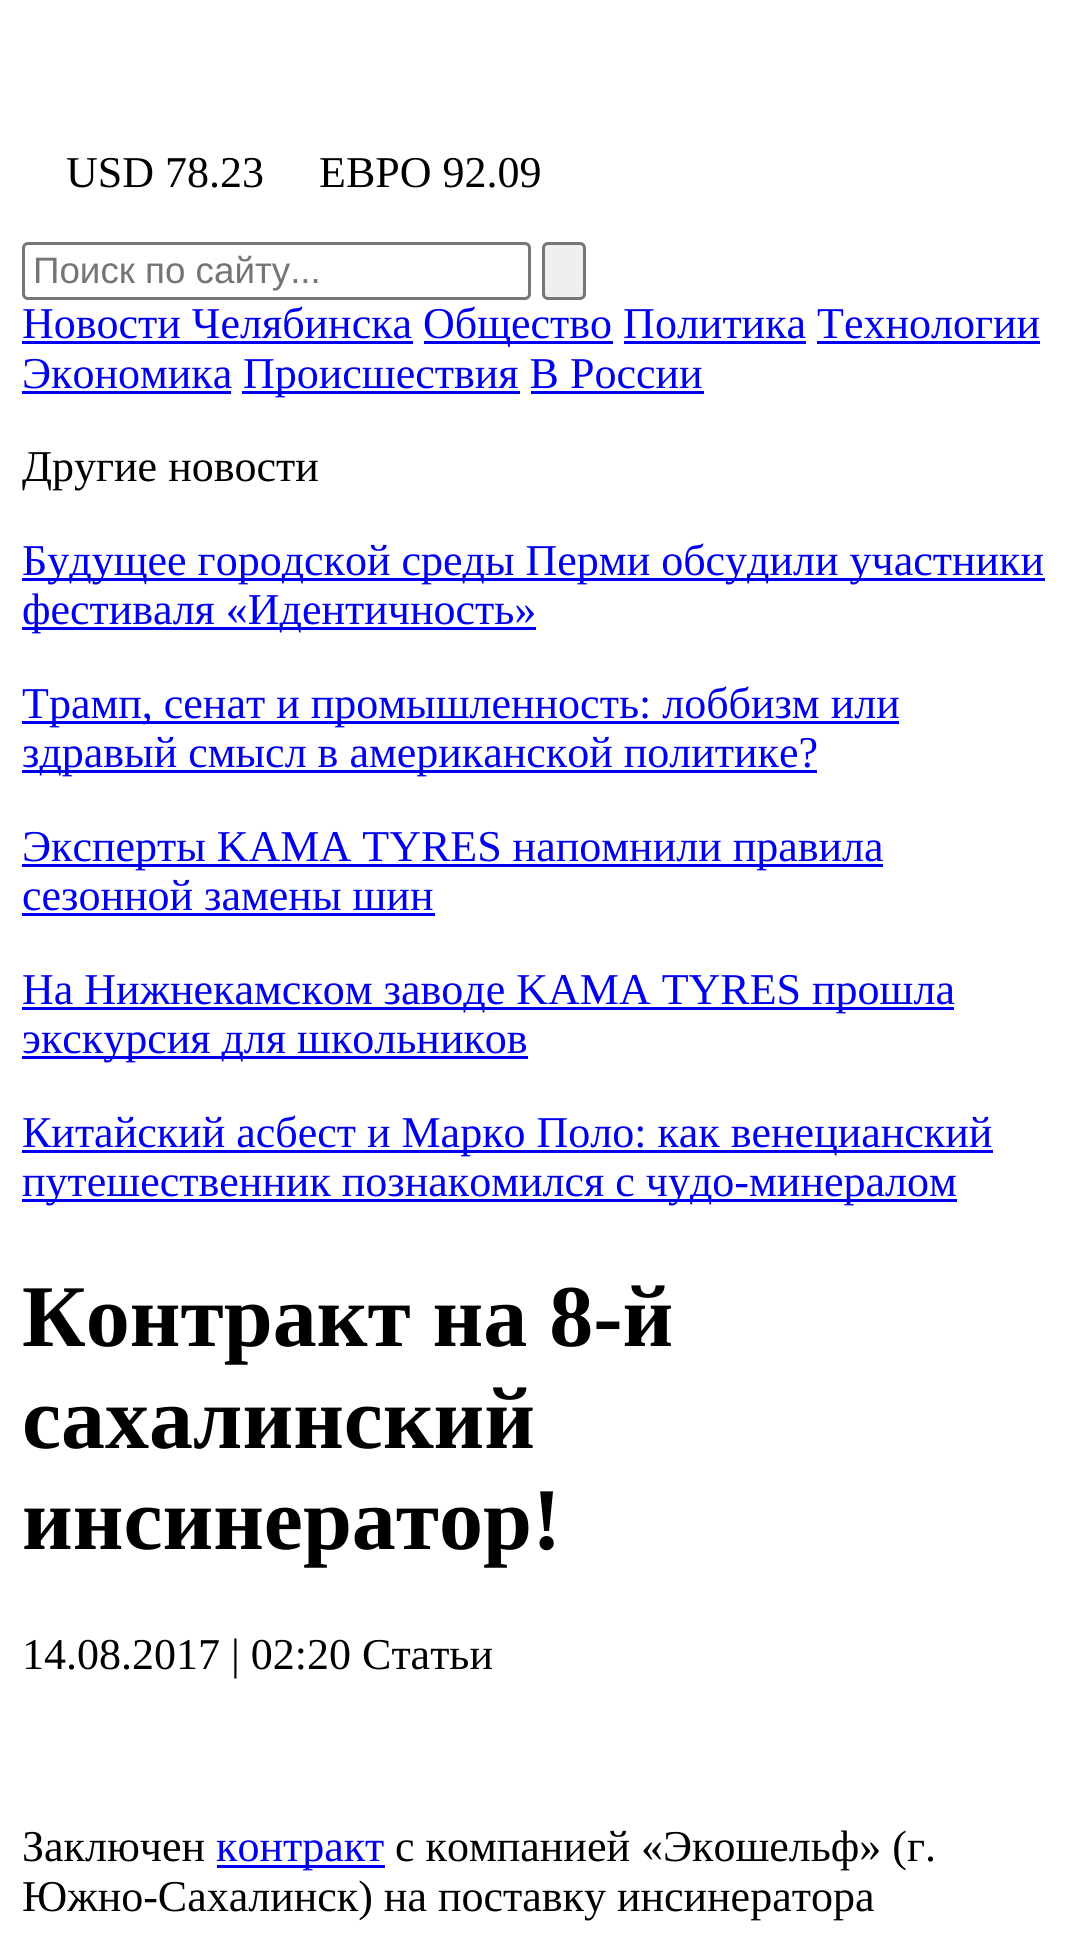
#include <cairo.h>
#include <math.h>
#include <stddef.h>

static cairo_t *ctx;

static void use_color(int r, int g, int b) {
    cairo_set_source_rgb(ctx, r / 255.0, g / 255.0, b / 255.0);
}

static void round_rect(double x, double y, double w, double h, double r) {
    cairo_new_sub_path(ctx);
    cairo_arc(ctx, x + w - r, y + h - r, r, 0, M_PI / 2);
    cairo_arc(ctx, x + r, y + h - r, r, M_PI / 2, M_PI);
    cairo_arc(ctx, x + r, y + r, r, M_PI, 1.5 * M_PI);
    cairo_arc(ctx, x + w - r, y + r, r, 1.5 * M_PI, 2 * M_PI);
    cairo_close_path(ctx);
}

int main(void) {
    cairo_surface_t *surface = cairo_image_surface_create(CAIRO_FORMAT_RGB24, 1077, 1942);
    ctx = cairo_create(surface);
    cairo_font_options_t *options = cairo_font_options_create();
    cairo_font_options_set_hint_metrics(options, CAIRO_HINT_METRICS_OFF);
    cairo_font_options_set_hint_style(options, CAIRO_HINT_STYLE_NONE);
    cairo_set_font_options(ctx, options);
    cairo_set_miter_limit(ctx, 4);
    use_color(255, 255, 255);
    cairo_paint(ctx);
    cairo_select_font_face(ctx, "Liberation Serif", CAIRO_FONT_SLANT_NORMAL, CAIRO_FONT_WEIGHT_NORMAL);
    cairo_set_font_size(ctx, 44);
    use_color(0, 0, 0);
    cairo_move_to(ctx, 66, 187);
    cairo_show_text(ctx, "USD 78.23");
    cairo_move_to(ctx, 319, 187);
    cairo_show_text(ctx, "ЕВРО 92.09");
    round_rect(23.5, 243.5, 506, 55, 4.5);
    use_color(118, 118, 118);
    cairo_set_line_width(ctx, 3);
    cairo_stroke(ctx);
    cairo_select_font_face(ctx, "Liberation Sans", CAIRO_FONT_SLANT_NORMAL, CAIRO_FONT_WEIGHT_NORMAL);
    cairo_set_font_size(ctx, 36.75);
    use_color(117, 117, 117);
    cairo_move_to(ctx, 33, 283);
    cairo_show_text(ctx, "Поиск по сайту...");
    use_color(239, 239, 239);
    round_rect(543.5, 243.5, 41, 55, 4.5);
    cairo_fill_preserve(ctx);
    use_color(118, 118, 118);
    cairo_stroke(ctx);
    cairo_select_font_face(ctx, "Liberation Serif", CAIRO_FONT_SLANT_NORMAL, CAIRO_FONT_WEIGHT_NORMAL);
    cairo_set_font_size(ctx, 44);
    use_color(0, 0, 238);
    cairo_move_to(ctx, 22, 338);
    cairo_show_text(ctx, "Новости Челябинска");
    cairo_rectangle(ctx, 22, 341, 391, 3);
    cairo_fill(ctx);
    cairo_rectangle(ctx, 424, 341, 189, 3);
    cairo_fill(ctx);
    cairo_move_to(ctx, 423, 338);
    cairo_show_text(ctx, "Общество Политика Технологии");
    cairo_rectangle(ctx, 624, 341, 182, 3);
    cairo_fill(ctx);
    cairo_rectangle(ctx, 817, 341, 223, 3);
    cairo_fill(ctx);
    cairo_move_to(ctx, 22, 388);
    cairo_show_text(ctx, "Экономика");
    cairo_rectangle(ctx, 22, 391, 209, 3);
    cairo_fill(ctx);
    cairo_rectangle(ctx, 242, 391, 278, 3);
    cairo_fill(ctx);
    cairo_move_to(ctx, 243, 388);
    cairo_show_text(ctx, "Происшествия В России");
    cairo_rectangle(ctx, 531, 391, 173, 3);
    cairo_fill(ctx);
    use_color(0, 0, 0);
    cairo_move_to(ctx, 22, 481);
    cairo_show_text(ctx, "Другие новости");
    use_color(0, 0, 238);
    cairo_rectangle(ctx, 22, 578, 1023, 3);
    cairo_fill(ctx);
    cairo_move_to(ctx, 22, 575);
    cairo_show_text(ctx, "Будущее городской среды Перми обсудили участники");
    cairo_rectangle(ctx, 22, 627, 514, 3);
    cairo_fill(ctx);
    cairo_move_to(ctx, 22, 624);
    cairo_show_text(ctx, "фестиваля «Идентичность»");
    cairo_rectangle(ctx, 22, 721, 877, 3);
    cairo_fill(ctx);
    cairo_move_to(ctx, 22, 718);
    cairo_show_text(ctx, "Трамп, сенат и промышленность: лоббизм или");
    cairo_rectangle(ctx, 22, 770, 795, 3);
    cairo_fill(ctx);
    cairo_move_to(ctx, 22, 767);
    cairo_show_text(ctx, "здравый смысл в американской политике?");
    cairo_rectangle(ctx, 22, 864, 861, 3);
    cairo_fill(ctx);
    cairo_move_to(ctx, 22, 861);
    cairo_show_text(ctx, "Эксперты KAMA TYRES напомнили правила");
    cairo_move_to(ctx, 22, 910);
    cairo_show_text(ctx, "сезонной замены шин");
    cairo_rectangle(ctx, 22, 913, 413, 3);
    cairo_fill(ctx);
    cairo_rectangle(ctx, 22, 1007, 932, 3);
    cairo_fill(ctx);
    cairo_move_to(ctx, 22, 1004);
    cairo_show_text(ctx, "На Нижнекамском заводе KAMA TYRES прошла");
    cairo_rectangle(ctx, 22, 1056, 506, 3);
    cairo_fill(ctx);
    cairo_move_to(ctx, 22, 1053);
    cairo_show_text(ctx, "экскурсия для школьников");
    cairo_rectangle(ctx, 22, 1150, 971, 3);
    cairo_fill(ctx);
    cairo_move_to(ctx, 22, 1147);
    cairo_show_text(ctx, "Китайский асбест и Марко Поло: как венецианский");
    cairo_rectangle(ctx, 22, 1199, 935, 3);
    cairo_fill(ctx);
    cairo_move_to(ctx, 22, 1196);
    cairo_show_text(ctx, "путешественник познакомился с чудо-минералом");
    cairo_select_font_face(ctx, "Liberation Serif", CAIRO_FONT_SLANT_NORMAL, CAIRO_FONT_WEIGHT_BOLD);
    cairo_set_font_size(ctx, 88);
    use_color(0, 0, 0);
    cairo_move_to(ctx, 22, 1346);
    cairo_show_text(ctx, "Контракт на 8-й");
    cairo_move_to(ctx, 22, 1448);
    cairo_show_text(ctx, "сахалинский");
    cairo_move_to(ctx, 22, 1549);
    cairo_show_text(ctx, "инсинератор!");
    cairo_select_font_face(ctx, "Liberation Serif", CAIRO_FONT_SLANT_NORMAL, CAIRO_FONT_WEIGHT_NORMAL);
    cairo_set_font_size(ctx, 44);
    cairo_move_to(ctx, 22, 1669);
    cairo_show_text(ctx, "14.08.2017 | 02:20 Статьи");
    cairo_move_to(ctx, 22, 1861);
    cairo_show_text(ctx, "Заключен");
    use_color(0, 0, 238);
    cairo_rectangle(ctx, 217, 1865, 168, 3);
    cairo_fill(ctx);
    cairo_move_to(ctx, 216, 1861);
    cairo_show_text(ctx, "контракт");
    use_color(0, 0, 0);
    cairo_move_to(ctx, 395, 1861);
    cairo_show_text(ctx, "с компанией «Экошельф» (г.");
    cairo_move_to(ctx, 22, 1911);
    cairo_show_text(ctx, "Южно-Сахалинск) на поставку инсинератора");
    cairo_surface_write_to_png(surface, "result.png");
    cairo_font_options_destroy(options);
    cairo_destroy(ctx);
    cairo_surface_destroy(surface);
    return 0;
}
